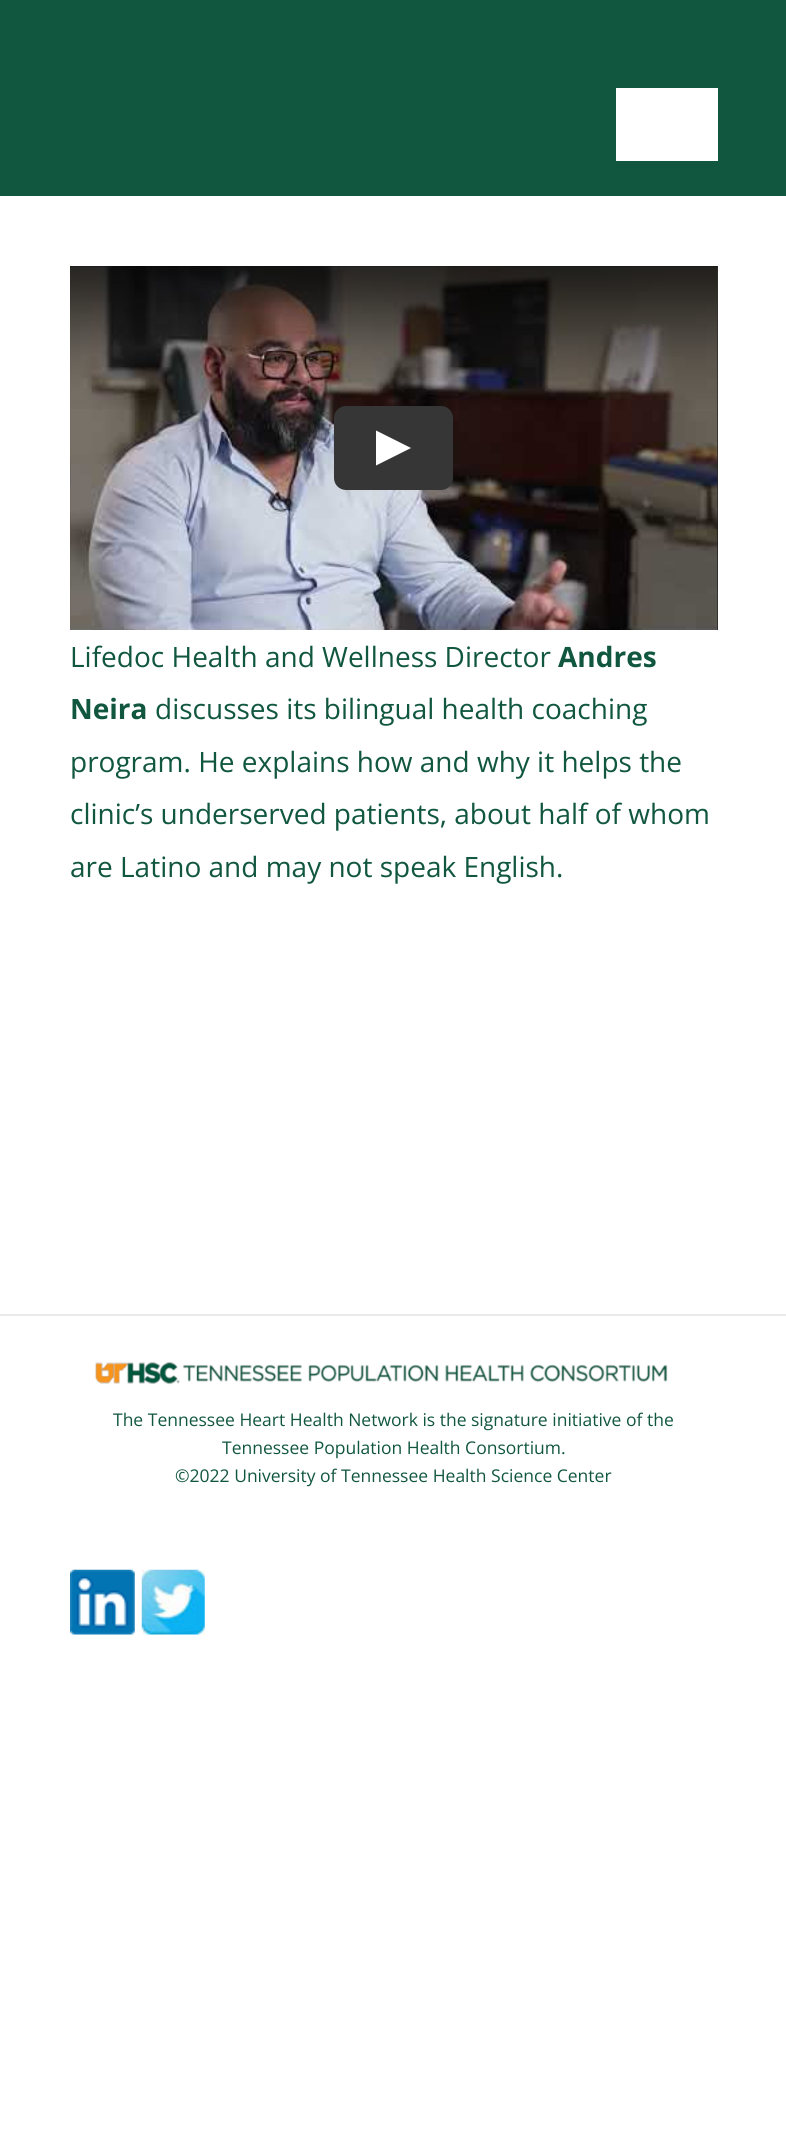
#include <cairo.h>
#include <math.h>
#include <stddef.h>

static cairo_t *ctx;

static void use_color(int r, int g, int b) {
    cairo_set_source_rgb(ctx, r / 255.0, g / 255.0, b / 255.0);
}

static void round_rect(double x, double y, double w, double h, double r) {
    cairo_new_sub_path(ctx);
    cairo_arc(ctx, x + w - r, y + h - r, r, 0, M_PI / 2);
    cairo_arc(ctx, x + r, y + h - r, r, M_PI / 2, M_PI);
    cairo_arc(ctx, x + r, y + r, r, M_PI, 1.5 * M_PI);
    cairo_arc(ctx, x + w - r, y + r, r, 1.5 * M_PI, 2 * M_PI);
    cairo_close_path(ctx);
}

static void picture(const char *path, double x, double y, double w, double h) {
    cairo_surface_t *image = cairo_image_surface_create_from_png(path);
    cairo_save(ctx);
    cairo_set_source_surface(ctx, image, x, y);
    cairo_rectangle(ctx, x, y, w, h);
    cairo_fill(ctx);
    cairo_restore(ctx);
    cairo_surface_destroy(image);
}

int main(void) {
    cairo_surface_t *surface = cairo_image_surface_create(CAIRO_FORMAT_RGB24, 786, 2156);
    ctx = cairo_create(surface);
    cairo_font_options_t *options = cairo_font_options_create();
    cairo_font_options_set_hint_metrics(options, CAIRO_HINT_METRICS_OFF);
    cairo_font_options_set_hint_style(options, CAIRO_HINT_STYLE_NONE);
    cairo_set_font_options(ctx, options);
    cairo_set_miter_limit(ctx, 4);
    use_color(255, 255, 255);
    cairo_paint(ctx);
    use_color(17, 87, 63);
    cairo_rectangle(ctx, 0, 0, 786, 196);
    cairo_fill(ctx);
    use_color(255, 255, 255);
    cairo_rectangle(ctx, 616, 88, 102, 73);
    cairo_fill(ctx);
    use_color(0, 0, 0);
    cairo_rectangle(ctx, 717, 266, 1, 364);
    cairo_fill(ctx);
    picture("img1.png", 70, 266, 648, 364);
    picture("img2.png", 70, 266, 648, 143);
    use_color(54, 54, 54);
    round_rect(334, 406, 119, 84, 12);
    cairo_fill(ctx);
    use_color(255, 255, 255);
    cairo_new_path(ctx);
    cairo_move_to(ctx, 376, 465.5);
    cairo_line_to(ctx, 376, 430.5);
    cairo_line_to(ctx, 411, 448);
    cairo_close_path(ctx);
    cairo_fill(ctx);
    cairo_select_font_face(ctx, "Open Sans", CAIRO_FONT_SLANT_NORMAL, CAIRO_FONT_WEIGHT_NORMAL);
    cairo_set_font_size(ctx, 28);
    use_color(17, 87, 64);
    cairo_move_to(ctx, 70, 667);
    cairo_show_text(ctx, "Lifedoc Health and Wellness Director");
    cairo_select_font_face(ctx, "Open Sans", CAIRO_FONT_SLANT_NORMAL, CAIRO_FONT_WEIGHT_BOLD);
    cairo_move_to(ctx, 558, 667);
    cairo_show_text(ctx, "Andres");
    cairo_move_to(ctx, 70, 719);
    cairo_show_text(ctx, "Neira");
    cairo_select_font_face(ctx, "Open Sans", CAIRO_FONT_SLANT_NORMAL, CAIRO_FONT_WEIGHT_NORMAL);
    cairo_move_to(ctx, 155, 719);
    cairo_show_text(ctx, "discusses its bilingual health coaching");
    cairo_move_to(ctx, 70, 772);
    cairo_show_text(ctx, "program. He explains how and why it helps the");
    cairo_move_to(ctx, 70, 824);
    cairo_show_text(ctx, "clinic’s underserved patients, about half of whom");
    cairo_move_to(ctx, 70, 877);
    cairo_show_text(ctx, "are Latino and may not speak English.");
    use_color(234, 234, 234);
    cairo_rectangle(ctx, 0, 1314, 786, 2);
    cairo_fill(ctx);
    picture("img3.png", 95, 1361, 573, 24);
    cairo_set_font_size(ctx, 17.5);
    use_color(17, 87, 64);
    cairo_move_to(ctx, 113, 1426);
    cairo_show_text(ctx, "The Tennessee Heart Health Network is the signature initiative of the");
    cairo_move_to(ctx, 222, 1454);
    cairo_show_text(ctx, "Tennessee Population Health Consortium.");
    cairo_move_to(ctx, 175, 1482);
    cairo_show_text(ctx, "©2022 University of Tennessee Health Science Center");
    picture("img4.png", 70, 1569, 65, 66);
    picture("img5.png", 141, 1569, 64, 66);
    cairo_surface_write_to_png(surface, "result.png");
    cairo_font_options_destroy(options);
    cairo_destroy(ctx);
    cairo_surface_destroy(surface);
    return 0;
}
